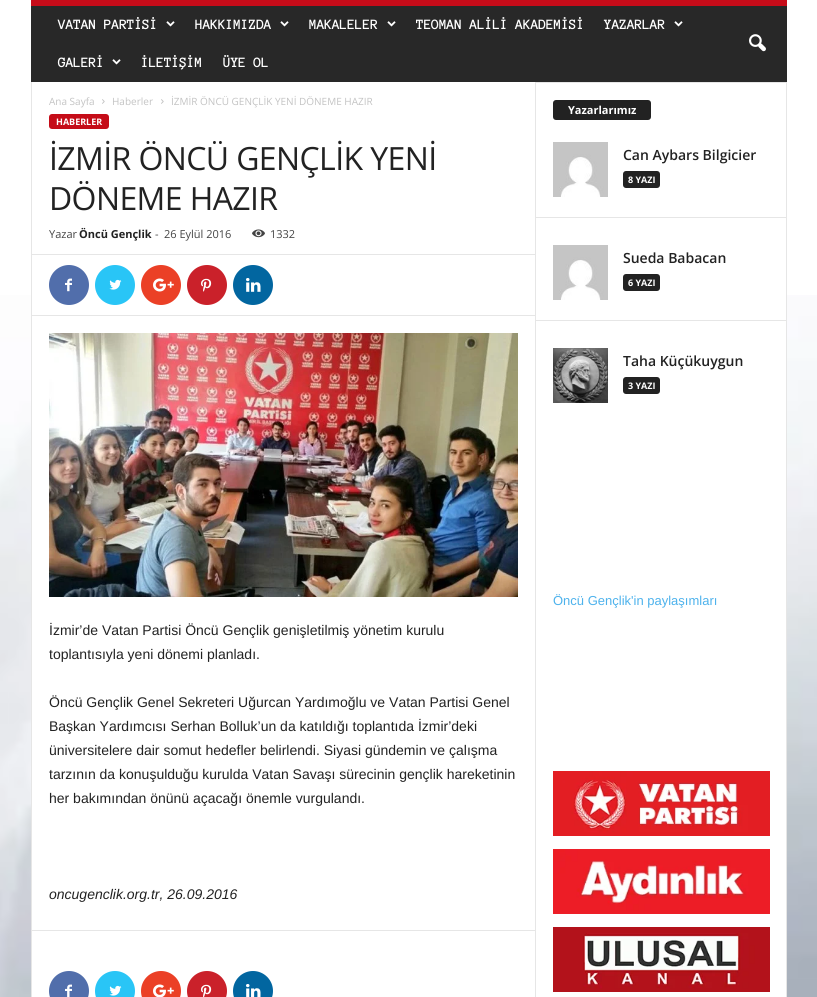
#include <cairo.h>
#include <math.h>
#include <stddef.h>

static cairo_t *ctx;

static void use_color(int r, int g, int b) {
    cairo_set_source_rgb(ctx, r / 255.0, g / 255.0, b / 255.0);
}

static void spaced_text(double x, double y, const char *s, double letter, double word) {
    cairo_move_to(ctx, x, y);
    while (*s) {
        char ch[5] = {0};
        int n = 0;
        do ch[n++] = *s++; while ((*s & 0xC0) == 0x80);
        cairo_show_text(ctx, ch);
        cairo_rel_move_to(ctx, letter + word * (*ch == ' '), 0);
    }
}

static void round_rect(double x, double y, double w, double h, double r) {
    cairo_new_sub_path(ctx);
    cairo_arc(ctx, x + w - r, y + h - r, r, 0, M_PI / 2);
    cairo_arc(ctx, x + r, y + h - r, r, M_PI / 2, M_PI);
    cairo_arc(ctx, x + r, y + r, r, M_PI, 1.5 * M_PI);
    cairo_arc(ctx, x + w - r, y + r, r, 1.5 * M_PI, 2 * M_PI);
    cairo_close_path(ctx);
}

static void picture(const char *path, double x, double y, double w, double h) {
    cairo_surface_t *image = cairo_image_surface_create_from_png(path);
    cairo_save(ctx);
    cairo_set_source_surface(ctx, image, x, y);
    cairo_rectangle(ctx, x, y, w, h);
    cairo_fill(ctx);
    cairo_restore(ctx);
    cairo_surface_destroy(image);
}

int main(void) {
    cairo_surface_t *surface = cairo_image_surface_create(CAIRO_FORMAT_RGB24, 817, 997);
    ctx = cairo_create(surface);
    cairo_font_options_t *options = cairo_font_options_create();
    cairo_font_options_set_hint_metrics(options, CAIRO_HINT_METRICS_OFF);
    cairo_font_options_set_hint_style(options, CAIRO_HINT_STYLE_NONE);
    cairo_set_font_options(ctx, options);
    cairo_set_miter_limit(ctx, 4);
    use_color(255, 255, 255);
    cairo_paint(ctx);
    use_color(198, 12, 25);
    cairo_rectangle(ctx, 31, 0, 756, 6);
    cairo_fill(ctx);
    use_color(40, 40, 40);
    cairo_rectangle(ctx, 31, 6, 756, 76);
    cairo_fill(ctx);
    cairo_select_font_face(ctx, "Anonymous Pro", CAIRO_FONT_SLANT_NORMAL, CAIRO_FONT_WEIGHT_BOLD);
    cairo_set_font_size(ctx, 14);
    use_color(255, 255, 255);
    cairo_move_to(ctx, 58, 29);
    cairo_show_text(ctx, "VATAN PARTİSİ");
    picture("img1.png", 166, 21, 9, 6);
    cairo_move_to(ctx, 195, 29);
    cairo_show_text(ctx, "HAKKIMIZDA");
    picture("img1.png", 280, 21, 9, 6);
    cairo_move_to(ctx, 309, 29);
    cairo_show_text(ctx, "MAKALELER");
    picture("img1.png", 387, 21, 9, 6);
    cairo_move_to(ctx, 416, 29);
    cairo_show_text(ctx, "TEOMAN ALİLİ AKADEMİSİ");
    cairo_move_to(ctx, 604, 29);
    cairo_show_text(ctx, "YAZARLAR");
    picture("img1.png", 674, 21, 9, 6);
    cairo_move_to(ctx, 58, 67);
    cairo_show_text(ctx, "GALERİ");
    picture("img1.png", 112, 59, 9, 6);
    cairo_move_to(ctx, 141, 67);
    cairo_show_text(ctx, "İLETİŞİM");
    cairo_move_to(ctx, 223, 67);
    cairo_show_text(ctx, "ÜYE OL");
    picture("img2.png", 749, 34, 17, 18);
    picture("img21.png", 0, 295, 817, 702);
    cairo_rectangle(ctx, 32, 295, 754, 702);
    cairo_fill(ctx);
    use_color(230, 230, 230);
    cairo_rectangle(ctx, 31, 82, 1, 915);
    cairo_fill(ctx);
    cairo_select_font_face(ctx, "Open Sans", CAIRO_FONT_SLANT_NORMAL, CAIRO_FONT_WEIGHT_NORMAL);
    cairo_set_font_size(ctx, 10);
    use_color(195, 195, 195);
    cairo_move_to(ctx, 49, 105);
    cairo_show_text(ctx, "Ana Sayfa");
    picture("img3.png", 102, 99, 3, 5);
    cairo_move_to(ctx, 112, 105);
    cairo_show_text(ctx, "Haberler");
    picture("img3.png", 161, 99, 3, 5);
    cairo_move_to(ctx, 171, 105);
    cairo_show_text(ctx, "İZMİR ÖNCÜ GENÇLİK YENİ DÖNEME HAZIR");
    use_color(197, 12, 24);
    round_rect(49, 114, 60, 15, 3);
    cairo_fill(ctx);
    cairo_select_font_face(ctx, "Open Sans", CAIRO_FONT_SLANT_NORMAL, CAIRO_FONT_WEIGHT_BOLD);
    cairo_set_font_size(ctx, 9);
    use_color(255, 255, 255);
    cairo_move_to(ctx, 56, 125);
    cairo_show_text(ctx, "HABERLER");
    cairo_select_font_face(ctx, "Open Sans", CAIRO_FONT_SLANT_NORMAL, CAIRO_FONT_WEIGHT_NORMAL);
    cairo_set_font_size(ctx, 32);
    use_color(34, 34, 34);
    spaced_text(49, 170, "İZMİR ÖNCÜ GENÇLİK YENİ", -0.6, 0);
    spaced_text(49, 210, "DÖNEME HAZIR", -0.6, 0);
    cairo_set_font_size(ctx, 11);
    use_color(68, 68, 68);
    cairo_move_to(ctx, 49, 238);
    cairo_show_text(ctx, "Yazar");
    cairo_select_font_face(ctx, "Open Sans", CAIRO_FONT_SLANT_NORMAL, CAIRO_FONT_WEIGHT_BOLD);
    use_color(34, 34, 34);
    cairo_move_to(ctx, 79, 238);
    cairo_show_text(ctx, "Öncü Gençlik");
    cairo_select_font_face(ctx, "Open Sans", CAIRO_FONT_SLANT_NORMAL, CAIRO_FONT_WEIGHT_NORMAL);
    use_color(68, 68, 68);
    cairo_move_to(ctx, 155, 238);
    cairo_show_text(ctx, "-");
    cairo_move_to(ctx, 164, 238);
    cairo_show_text(ctx, "26 Eylül 2016");
    picture("img4.png", 252, 229, 13, 9);
    cairo_move_to(ctx, 270, 238);
    cairo_show_text(ctx, "1332");
    use_color(230, 230, 230);
    cairo_rectangle(ctx, 32, 254, 503, 1);
    cairo_fill(ctx);
    use_color(81, 110, 171);
    cairo_arc(ctx, 69, 285, 20, 0, 2 * M_PI);
    cairo_fill(ctx);
    picture("img5.png", 65, 278, 7, 14);
    use_color(41, 197, 246);
    cairo_arc(ctx, 115, 285, 20, 0, 2 * M_PI);
    cairo_fill(ctx);
    picture("img6.png", 109, 279, 13, 11);
    use_color(235, 64, 38);
    cairo_arc(ctx, 161, 285, 20, 0, 2 * M_PI);
    cairo_fill(ctx);
    picture("img7.png", 153, 278, 21, 14);
    use_color(202, 33, 42);
    cairo_arc(ctx, 207, 285, 20, 0, 2 * M_PI);
    cairo_fill(ctx);
    picture("img8.png", 201, 278, 11, 14);
    use_color(2, 102, 160);
    cairo_arc(ctx, 253, 285, 20, 0, 2 * M_PI);
    cairo_fill(ctx);
    picture("img9.png", 246, 278, 15, 14);
    use_color(230, 230, 230);
    cairo_rectangle(ctx, 32, 315, 503, 1);
    cairo_fill(ctx);
    picture("img10.png", 49, 333, 469, 264);
    cairo_select_font_face(ctx, "Liberation Sans", CAIRO_FONT_SLANT_NORMAL, CAIRO_FONT_WEIGHT_NORMAL);
    cairo_set_font_size(ctx, 14);
    use_color(34, 34, 34);
    cairo_move_to(ctx, 49, 635);
    cairo_show_text(ctx, "İzmir’de Vatan Partisi Öncü Gençlik genişletilmiş yönetim kurulu");
    cairo_move_to(ctx, 49, 659);
    cairo_show_text(ctx, "toplantısıyla yeni dönemi planladı.");
    cairo_move_to(ctx, 49, 707);
    cairo_show_text(ctx, "Öncü Gençlik Genel Sekreteri Uğurcan Yardımoğlu ve Vatan Partisi Genel");
    cairo_move_to(ctx, 49, 731);
    cairo_show_text(ctx, "Başkan Yardımcısı Serhan Bolluk’un da katıldığı toplantıda İzmir’deki");
    cairo_move_to(ctx, 49, 755);
    cairo_show_text(ctx, "üniversitelere dair somut hedefler belirlendi. Siyasi gündemin ve çalışma");
    cairo_move_to(ctx, 49, 779);
    cairo_show_text(ctx, "tarzının da konuşulduğu kurulda Vatan Savaşı sürecinin gençlik hareketinin");
    cairo_move_to(ctx, 49, 803);
    cairo_show_text(ctx, "her bakımından önünü açacağı önemle vurgulandı.");
    cairo_select_font_face(ctx, "Liberation Sans", CAIRO_FONT_SLANT_ITALIC, CAIRO_FONT_WEIGHT_NORMAL);
    cairo_move_to(ctx, 49, 899);
    cairo_show_text(ctx, "oncugenclik.org.tr, 26.09.2016");
    use_color(230, 230, 230);
    cairo_rectangle(ctx, 32, 930, 503, 1);
    cairo_fill(ctx);
    use_color(81, 110, 171);
    cairo_arc(ctx, 69, 991, 20, 0, 2 * M_PI);
    cairo_fill(ctx);
    picture("img11.png", 65, 984, 7, 13);
    use_color(41, 197, 246);
    cairo_arc(ctx, 115, 991, 20, 0, 2 * M_PI);
    cairo_fill(ctx);
    picture("img6.png", 109, 985, 13, 11);
    use_color(235, 64, 38);
    cairo_arc(ctx, 161, 991, 20, 0, 2 * M_PI);
    cairo_fill(ctx);
    picture("img12.png", 153, 984, 21, 13);
    use_color(202, 33, 42);
    cairo_arc(ctx, 207, 991, 20, 0, 2 * M_PI);
    cairo_fill(ctx);
    picture("img13.png", 201, 984, 11, 13);
    use_color(2, 102, 160);
    cairo_arc(ctx, 253, 991, 20, 0, 2 * M_PI);
    cairo_fill(ctx);
    picture("img14.png", 246, 984, 15, 13);
    use_color(230, 230, 230);
    cairo_rectangle(ctx, 535, 82, 1, 915);
    cairo_fill(ctx);
    cairo_rectangle(ctx, 786, 82, 1, 915);
    cairo_fill(ctx);
    cairo_rectangle(ctx, 536, 82, 251, 1);
    cairo_fill(ctx);
    use_color(34, 34, 34);
    round_rect(553, 100, 98, 20, 3);
    cairo_fill(ctx);
    cairo_select_font_face(ctx, "Open Sans", CAIRO_FONT_SLANT_NORMAL, CAIRO_FONT_WEIGHT_BOLD);
    cairo_set_font_size(ctx, 11);
    use_color(255, 255, 255);
    cairo_move_to(ctx, 568, 114);
    cairo_show_text(ctx, "Yazarlarımız");
    picture("img15.png", 553, 142, 55, 55);
    cairo_select_font_face(ctx, "Open Sans SemiBold", CAIRO_FONT_SLANT_NORMAL, CAIRO_FONT_WEIGHT_NORMAL);
    cairo_set_font_size(ctx, 14);
    use_color(34, 34, 34);
    cairo_move_to(ctx, 623, 160);
    cairo_show_text(ctx, "Can Aybars Bilgicier");
    round_rect(623, 171, 37, 17, 3);
    cairo_fill(ctx);
    cairo_select_font_face(ctx, "Open Sans", CAIRO_FONT_SLANT_NORMAL, CAIRO_FONT_WEIGHT_BOLD);
    cairo_set_font_size(ctx, 9);
    use_color(255, 255, 255);
    cairo_move_to(ctx, 628, 183);
    cairo_show_text(ctx, "8 YAZI");
    use_color(230, 230, 230);
    cairo_rectangle(ctx, 536, 217, 251, 1);
    cairo_fill(ctx);
    picture("img16.png", 553, 245, 55, 55);
    cairo_select_font_face(ctx, "Open Sans SemiBold", CAIRO_FONT_SLANT_NORMAL, CAIRO_FONT_WEIGHT_NORMAL);
    cairo_set_font_size(ctx, 14);
    use_color(34, 34, 34);
    cairo_move_to(ctx, 623, 263);
    cairo_show_text(ctx, "Sueda Babacan");
    round_rect(623, 274, 37, 17, 3);
    cairo_fill(ctx);
    cairo_select_font_face(ctx, "Open Sans", CAIRO_FONT_SLANT_NORMAL, CAIRO_FONT_WEIGHT_BOLD);
    cairo_set_font_size(ctx, 9);
    use_color(255, 255, 255);
    cairo_move_to(ctx, 628, 286);
    cairo_show_text(ctx, "6 YAZI");
    use_color(230, 230, 230);
    cairo_rectangle(ctx, 536, 320, 251, 1);
    cairo_fill(ctx);
    picture("img17.png", 553, 348, 55, 55);
    cairo_select_font_face(ctx, "Open Sans SemiBold", CAIRO_FONT_SLANT_NORMAL, CAIRO_FONT_WEIGHT_NORMAL);
    cairo_set_font_size(ctx, 14);
    use_color(34, 34, 34);
    cairo_move_to(ctx, 623, 366);
    cairo_show_text(ctx, "Taha Küçükuygun");
    round_rect(623, 377, 37, 17, 3);
    cairo_fill(ctx);
    cairo_select_font_face(ctx, "Open Sans", CAIRO_FONT_SLANT_NORMAL, CAIRO_FONT_WEIGHT_BOLD);
    cairo_set_font_size(ctx, 9);
    use_color(255, 255, 255);
    cairo_move_to(ctx, 628, 389);
    cairo_show_text(ctx, "3 YAZI");
    cairo_select_font_face(ctx, "Liberation Sans", CAIRO_FONT_SLANT_NORMAL, CAIRO_FONT_WEIGHT_NORMAL);
    cairo_set_font_size(ctx, 13);
    use_color(77, 178, 236);
    cairo_move_to(ctx, 553, 605);
    cairo_show_text(ctx, "Öncü Gençlik'in paylaşımları");
    picture("img18.png", 553, 771, 217, 65);
    picture("img19.png", 553, 849, 217, 65);
    picture("img20.png", 553, 927, 217, 65);
    cairo_surface_write_to_png(surface, "result.png");
    cairo_font_options_destroy(options);
    cairo_destroy(ctx);
    cairo_surface_destroy(surface);
    return 0;
}
